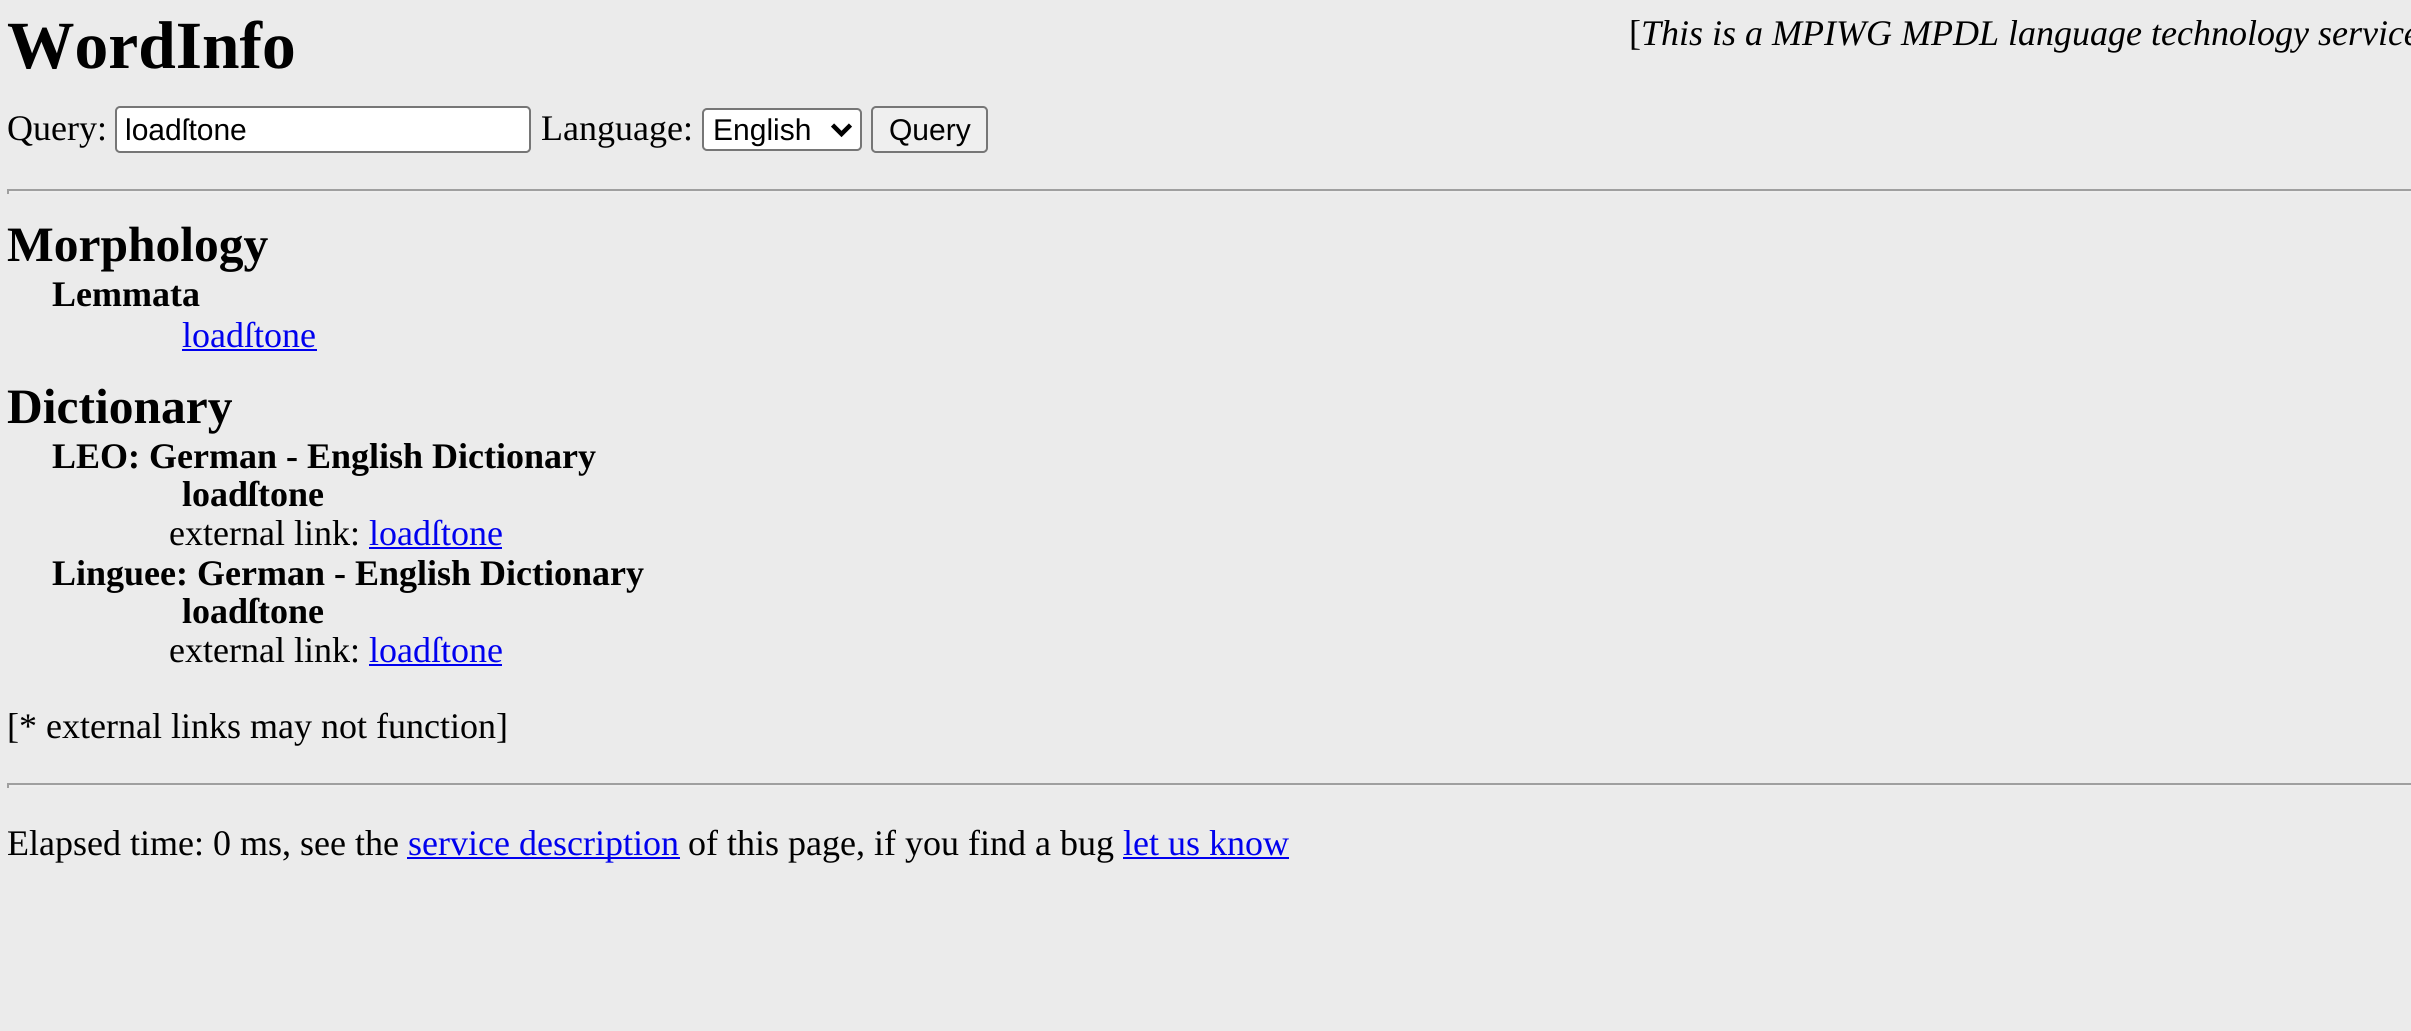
#include <cairo.h>
#include <math.h>
#include <stddef.h>

static cairo_t *ctx;

static void use_color(int r, int g, int b) {
    cairo_set_source_rgb(ctx, r / 255.0, g / 255.0, b / 255.0);
}

static void round_rect(double x, double y, double w, double h, double r) {
    cairo_new_sub_path(ctx);
    cairo_arc(ctx, x + w - r, y + h - r, r, 0, M_PI / 2);
    cairo_arc(ctx, x + r, y + h - r, r, M_PI / 2, M_PI);
    cairo_arc(ctx, x + r, y + r, r, M_PI, 1.5 * M_PI);
    cairo_arc(ctx, x + w - r, y + r, r, 1.5 * M_PI, 2 * M_PI);
    cairo_close_path(ctx);
}

int main(void) {
    cairo_surface_t *surface = cairo_image_surface_create(CAIRO_FORMAT_RGB24, 2411, 1031);
    ctx = cairo_create(surface);
    cairo_font_options_t *options = cairo_font_options_create();
    cairo_font_options_set_hint_metrics(options, CAIRO_HINT_METRICS_OFF);
    cairo_font_options_set_hint_style(options, CAIRO_HINT_STYLE_NONE);
    cairo_set_font_options(ctx, options);
    cairo_set_miter_limit(ctx, 4);
    use_color(235, 235, 235);
    cairo_paint(ctx);
    cairo_select_font_face(ctx, "Liberation Serif", CAIRO_FONT_SLANT_NORMAL, CAIRO_FONT_WEIGHT_BOLD);
    cairo_set_font_size(ctx, 67.5);
    use_color(0, 0, 0);
    cairo_move_to(ctx, 7, 68);
    cairo_show_text(ctx, "WordInfo");
    cairo_select_font_face(ctx, "Liberation Serif", CAIRO_FONT_SLANT_NORMAL, CAIRO_FONT_WEIGHT_NORMAL);
    cairo_set_font_size(ctx, 36);
    cairo_move_to(ctx, 1629, 45);
    cairo_show_text(ctx, "[");
    cairo_select_font_face(ctx, "Liberation Serif", CAIRO_FONT_SLANT_ITALIC, CAIRO_FONT_WEIGHT_NORMAL);
    cairo_move_to(ctx, 1641, 45);
    cairo_show_text(ctx, "This is a MPIWG MPDL language technology service");
    cairo_select_font_face(ctx, "Liberation Serif", CAIRO_FONT_SLANT_NORMAL, CAIRO_FONT_WEIGHT_NORMAL);
    cairo_move_to(ctx, 7, 140);
    cairo_show_text(ctx, "Query:");
    use_color(255, 255, 255);
    round_rect(116, 107, 414, 45, 4);
    cairo_fill_preserve(ctx);
    use_color(118, 118, 118);
    cairo_stroke(ctx);
    cairo_select_font_face(ctx, "Liberation Sans", CAIRO_FONT_SLANT_NORMAL, CAIRO_FONT_WEIGHT_NORMAL);
    cairo_set_font_size(ctx, 30);
    use_color(0, 0, 0);
    cairo_move_to(ctx, 125, 140);
    cairo_show_text(ctx, "loadſtone");
    cairo_select_font_face(ctx, "Liberation Serif", CAIRO_FONT_SLANT_NORMAL, CAIRO_FONT_WEIGHT_NORMAL);
    cairo_set_font_size(ctx, 36);
    cairo_move_to(ctx, 541, 140);
    cairo_show_text(ctx, "Language:");
    use_color(255, 255, 255);
    round_rect(703, 109, 158, 41, 4);
    cairo_fill_preserve(ctx);
    use_color(118, 118, 118);
    cairo_stroke(ctx);
    cairo_new_path(ctx);
    cairo_move_to(ctx, 832.5, 125);
    cairo_line_to(ctx, 841.5, 134);
    cairo_line_to(ctx, 850.5, 125);
    use_color(0, 0, 0);
    cairo_set_line_width(ctx, 4.5);
    cairo_stroke(ctx);
    cairo_select_font_face(ctx, "Liberation Sans", CAIRO_FONT_SLANT_NORMAL, CAIRO_FONT_WEIGHT_NORMAL);
    cairo_set_font_size(ctx, 30);
    cairo_move_to(ctx, 713, 140);
    cairo_show_text(ctx, "English");
    use_color(239, 239, 239);
    round_rect(872, 107, 115, 45, 4);
    cairo_fill_preserve(ctx);
    use_color(118, 118, 118);
    cairo_set_line_width(ctx, 2);
    cairo_stroke(ctx);
    use_color(0, 0, 0);
    cairo_move_to(ctx, 889, 140);
    cairo_show_text(ctx, "Query");
    use_color(159, 159, 159);
    cairo_rectangle(ctx, 7, 189, 2404, 2);
    cairo_fill(ctx);
    use_color(238, 238, 238);
    cairo_rectangle(ctx, 7, 191, 2404, 2);
    cairo_fill(ctx);
    use_color(159, 159, 159);
    cairo_rectangle(ctx, 7, 189, 2, 5);
    cairo_fill(ctx);
    cairo_select_font_face(ctx, "Liberation Serif", CAIRO_FONT_SLANT_NORMAL, CAIRO_FONT_WEIGHT_BOLD);
    cairo_set_font_size(ctx, 49.5);
    use_color(0, 0, 0);
    cairo_move_to(ctx, 7, 261);
    cairo_show_text(ctx, "Morphology");
    cairo_set_font_size(ctx, 36);
    cairo_move_to(ctx, 52, 306);
    cairo_show_text(ctx, "Lemmata");
    cairo_select_font_face(ctx, "Liberation Serif", CAIRO_FONT_SLANT_NORMAL, CAIRO_FONT_WEIGHT_NORMAL);
    use_color(0, 0, 238);
    cairo_move_to(ctx, 182, 347);
    cairo_show_text(ctx, "loadſtone");
    cairo_rectangle(ctx, 182, 349, 135, 2);
    cairo_fill(ctx);
    cairo_select_font_face(ctx, "Liberation Serif", CAIRO_FONT_SLANT_NORMAL, CAIRO_FONT_WEIGHT_BOLD);
    cairo_set_font_size(ctx, 49.5);
    use_color(0, 0, 0);
    cairo_move_to(ctx, 7, 423);
    cairo_show_text(ctx, "Dictionary");
    cairo_set_font_size(ctx, 36);
    cairo_move_to(ctx, 52, 468);
    cairo_show_text(ctx, "LEO: German - English Dictionary");
    cairo_move_to(ctx, 182, 506);
    cairo_show_text(ctx, "loadſtone");
    cairo_select_font_face(ctx, "Liberation Serif", CAIRO_FONT_SLANT_NORMAL, CAIRO_FONT_WEIGHT_NORMAL);
    cairo_move_to(ctx, 169, 545);
    cairo_show_text(ctx, "external link:");
    use_color(0, 0, 238);
    cairo_move_to(ctx, 369, 545);
    cairo_show_text(ctx, "loadſtone");
    cairo_rectangle(ctx, 369, 547, 133, 2);
    cairo_fill(ctx);
    cairo_select_font_face(ctx, "Liberation Serif", CAIRO_FONT_SLANT_NORMAL, CAIRO_FONT_WEIGHT_BOLD);
    use_color(0, 0, 0);
    cairo_move_to(ctx, 52, 585);
    cairo_show_text(ctx, "Linguee: German - English Dictionary");
    cairo_move_to(ctx, 182, 623);
    cairo_show_text(ctx, "loadſtone");
    cairo_select_font_face(ctx, "Liberation Serif", CAIRO_FONT_SLANT_NORMAL, CAIRO_FONT_WEIGHT_NORMAL);
    cairo_move_to(ctx, 169, 662);
    cairo_show_text(ctx, "external link:");
    use_color(0, 0, 238);
    cairo_move_to(ctx, 369, 662);
    cairo_show_text(ctx, "loadſtone");
    cairo_rectangle(ctx, 369, 664, 133, 2);
    cairo_fill(ctx);
    use_color(0, 0, 0);
    cairo_move_to(ctx, 7, 738);
    cairo_show_text(ctx, "[* external links may not function]");
    use_color(159, 159, 159);
    cairo_rectangle(ctx, 7, 783, 2404, 2);
    cairo_fill(ctx);
    use_color(238, 238, 238);
    cairo_rectangle(ctx, 7, 785, 2404, 2);
    cairo_fill(ctx);
    use_color(159, 159, 159);
    cairo_rectangle(ctx, 7, 783, 2, 5);
    cairo_fill(ctx);
    use_color(0, 0, 0);
    cairo_move_to(ctx, 7, 855);
    cairo_show_text(ctx, "Elapsed time: 0 ms, see the");
    use_color(0, 0, 238);
    cairo_rectangle(ctx, 407, 857, 273, 2);
    cairo_fill(ctx);
    cairo_move_to(ctx, 408, 855);
    cairo_show_text(ctx, "service description");
    use_color(0, 0, 0);
    cairo_move_to(ctx, 688, 855);
    cairo_show_text(ctx, "of this page, if you find a bug");
    use_color(0, 0, 238);
    cairo_move_to(ctx, 1123, 855);
    cairo_show_text(ctx, "let us know");
    cairo_rectangle(ctx, 1123, 857, 166, 2);
    cairo_fill(ctx);
    cairo_surface_write_to_png(surface, "result.png");
    cairo_font_options_destroy(options);
    cairo_destroy(ctx);
    cairo_surface_destroy(surface);
    return 0;
}
